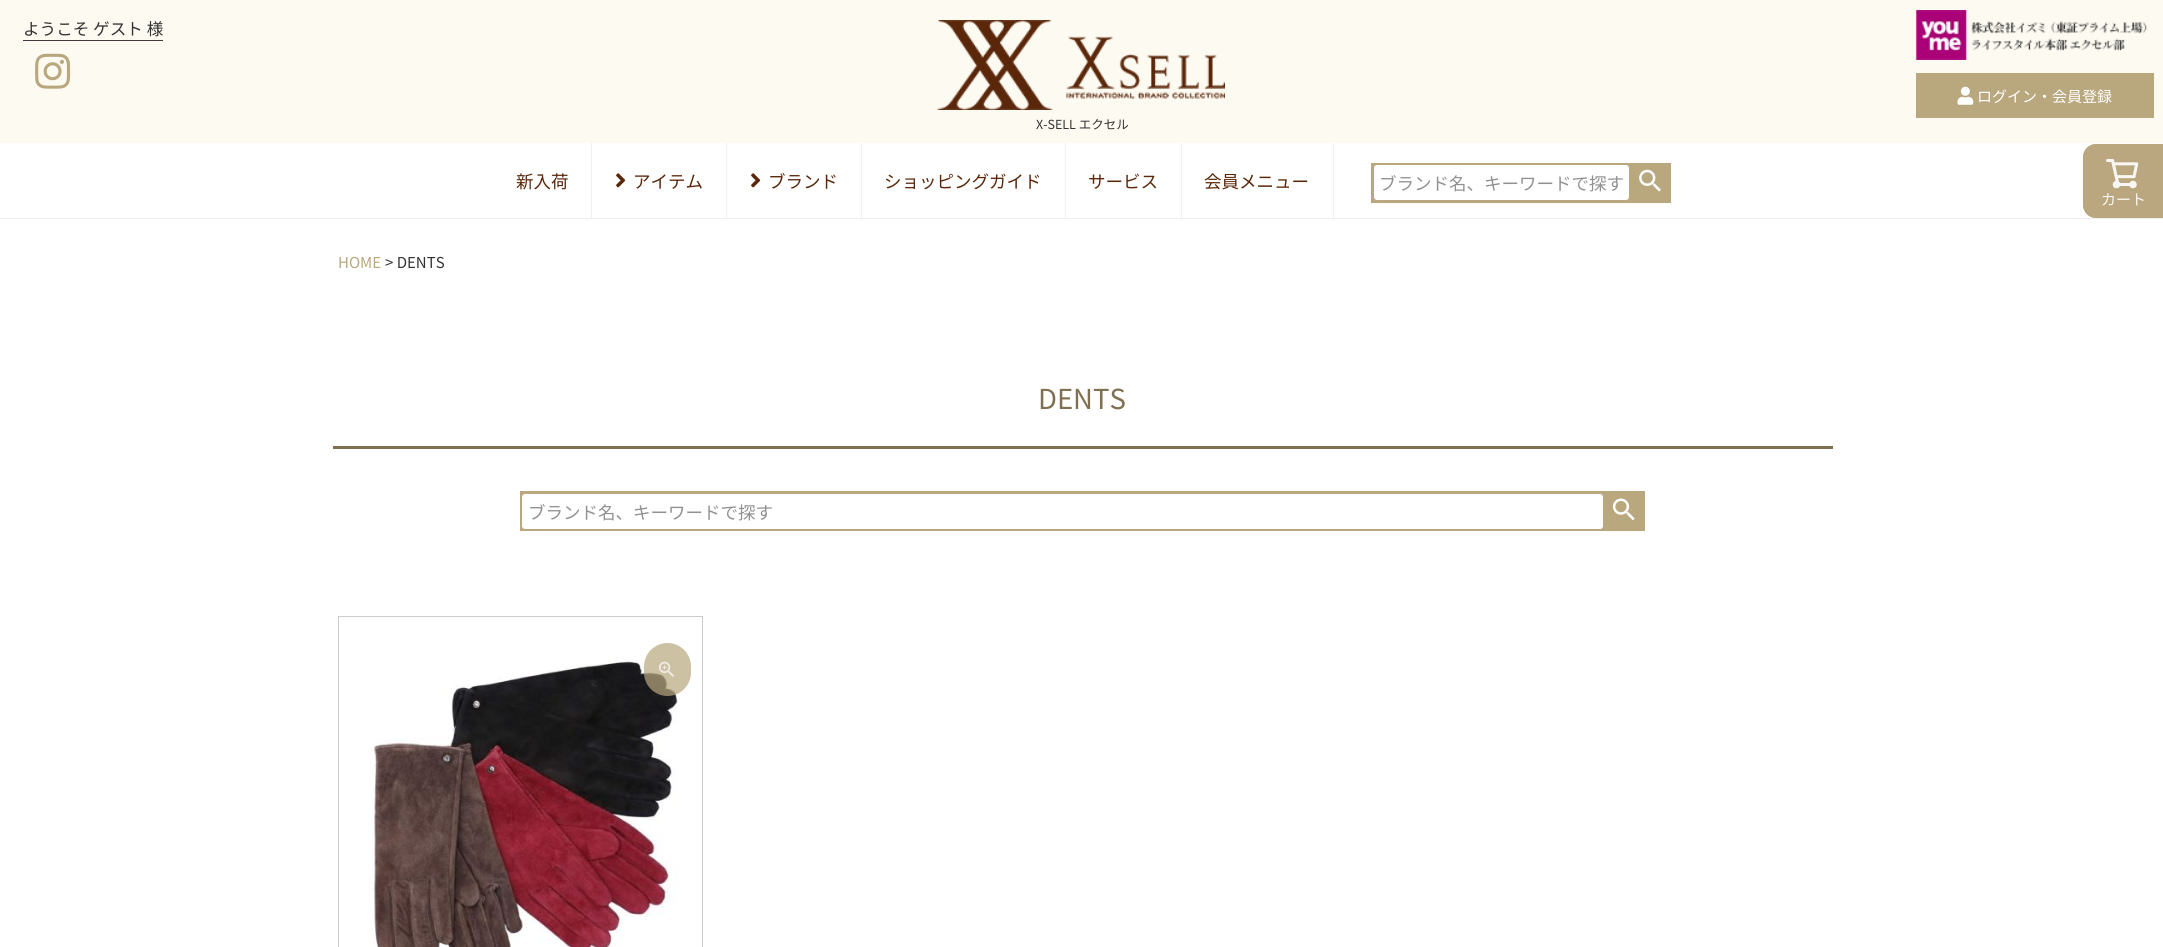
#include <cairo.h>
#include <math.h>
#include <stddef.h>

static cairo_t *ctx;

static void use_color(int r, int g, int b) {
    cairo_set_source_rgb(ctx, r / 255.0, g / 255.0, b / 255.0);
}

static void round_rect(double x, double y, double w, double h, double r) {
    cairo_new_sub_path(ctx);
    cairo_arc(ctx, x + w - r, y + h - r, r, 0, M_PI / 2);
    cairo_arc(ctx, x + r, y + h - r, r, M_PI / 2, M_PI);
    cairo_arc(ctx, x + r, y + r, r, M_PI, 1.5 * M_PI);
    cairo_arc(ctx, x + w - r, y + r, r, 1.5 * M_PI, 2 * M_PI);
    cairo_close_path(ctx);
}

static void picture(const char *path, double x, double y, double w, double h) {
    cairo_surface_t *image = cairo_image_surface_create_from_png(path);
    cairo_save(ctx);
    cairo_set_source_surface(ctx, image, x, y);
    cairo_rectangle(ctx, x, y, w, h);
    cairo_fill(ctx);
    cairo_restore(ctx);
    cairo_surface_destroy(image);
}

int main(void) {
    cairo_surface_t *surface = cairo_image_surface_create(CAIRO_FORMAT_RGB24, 2163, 947);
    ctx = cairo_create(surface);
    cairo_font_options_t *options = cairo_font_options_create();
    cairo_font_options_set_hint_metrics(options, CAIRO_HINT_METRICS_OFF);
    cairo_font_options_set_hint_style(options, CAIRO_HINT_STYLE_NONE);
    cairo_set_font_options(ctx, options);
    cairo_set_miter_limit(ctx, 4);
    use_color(255, 255, 255);
    cairo_paint(ctx);
    use_color(253, 250, 242);
    cairo_rectangle(ctx, 0, 0, 2163, 143);
    cairo_fill(ctx);
    use_color(69, 57, 62);
    cairo_rectangle(ctx, 23, 40, 140, 1);
    cairo_fill(ctx);
    cairo_select_font_face(ctx, "Noto Sans JP Thin", CAIRO_FONT_SLANT_NORMAL, CAIRO_FONT_WEIGHT_NORMAL);
    cairo_set_font_size(ctx, 16.6);
    use_color(51, 51, 51);
    cairo_move_to(ctx, 23, 35);
    cairo_show_text(ctx, "ようこそ ゲスト 様");
    picture("img1.png", 35, 53, 36, 36);
    picture("img2.png", 1916, 10, 231, 50);
    use_color(185, 167, 126);
    cairo_rectangle(ctx, 1916, 73, 238, 45);
    cairo_fill(ctx);
    picture("img3.png", 1957, 86, 17, 19);
    cairo_set_font_size(ctx, 15);
    use_color(255, 255, 255);
    cairo_move_to(ctx, 1977, 102);
    cairo_show_text(ctx, "ログイン・会員登録");
    picture("img4.png", 937, 20, 288, 90);
    cairo_set_font_size(ctx, 12.5);
    use_color(51, 51, 51);
    cairo_move_to(ctx, 1036, 129);
    cairo_show_text(ctx, "X-SELL エクセル");
    use_color(239, 239, 239);
    cairo_rectangle(ctx, 0, 218, 2163, 1);
    cairo_fill(ctx);
    cairo_rectangle(ctx, 591, 143, 1, 75);
    cairo_fill(ctx);
    cairo_set_font_size(ctx, 17.5);
    use_color(90, 39, 10);
    cairo_move_to(ctx, 516, 188);
    cairo_show_text(ctx, "新入荷");
    use_color(239, 239, 239);
    cairo_rectangle(ctx, 726, 143, 1, 75);
    cairo_fill(ctx);
    picture("img5.png", 616, 173, 10, 15);
    use_color(90, 39, 10);
    cairo_move_to(ctx, 633, 188);
    cairo_show_text(ctx, "アイテム");
    use_color(239, 239, 239);
    cairo_rectangle(ctx, 861, 143, 1, 75);
    cairo_fill(ctx);
    picture("img5.png", 751, 173, 10, 15);
    use_color(90, 39, 10);
    cairo_move_to(ctx, 768, 188);
    cairo_show_text(ctx, "ブランド");
    use_color(239, 239, 239);
    cairo_rectangle(ctx, 1065, 143, 1, 75);
    cairo_fill(ctx);
    use_color(90, 39, 10);
    cairo_move_to(ctx, 884, 188);
    cairo_show_text(ctx, "ショッピングガイド");
    use_color(239, 239, 239);
    cairo_rectangle(ctx, 1181, 143, 1, 75);
    cairo_fill(ctx);
    use_color(90, 39, 10);
    cairo_move_to(ctx, 1088, 188);
    cairo_show_text(ctx, "サービス");
    use_color(239, 239, 239);
    cairo_rectangle(ctx, 1333, 143, 1, 75);
    cairo_fill(ctx);
    use_color(90, 39, 10);
    cairo_move_to(ctx, 1204, 188);
    cairo_show_text(ctx, "会員メニュー");
    use_color(185, 167, 126);
    cairo_rectangle(ctx, 1371, 163, 300, 40);
    cairo_fill(ctx);
    use_color(255, 255, 255);
    round_rect(1373.5, 164.5, 256, 36, 3.5);
    cairo_fill_preserve(ctx);
    use_color(185, 167, 126);
    cairo_set_line_width(ctx, 1);
    cairo_stroke(ctx);
    use_color(145, 145, 145);
    cairo_move_to(ctx, 1379, 190);
    cairo_show_text(ctx, "ブランド名、キーワードで探す");
    picture("img6.png", 1639, 169, 22, 23);
    use_color(192, 176, 139);
    cairo_new_path(ctx);
    cairo_move_to(ctx, 2096, 144);
    cairo_line_to(ctx, 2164, 144);
    cairo_line_to(ctx, 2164, 218);
    cairo_line_to(ctx, 2096, 218);
    cairo_curve_to(ctx, 2089, 218, 2083, 212, 2083, 205);
    cairo_line_to(ctx, 2083, 157);
    cairo_curve_to(ctx, 2083, 150, 2089, 144, 2096, 144);
    cairo_close_path(ctx);
    cairo_fill(ctx);
    picture("img8.png", 2106, 159, 33, 30);
    cairo_set_source_rgba(ctx, 0.725, 0.655, 0.494, 0.9);
    cairo_new_path(ctx);
    cairo_move_to(ctx, 2096, 144);
    cairo_line_to(ctx, 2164, 144);
    cairo_line_to(ctx, 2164, 218);
    cairo_line_to(ctx, 2096, 218);
    cairo_curve_to(ctx, 2089, 218, 2083, 212, 2083, 205);
    cairo_line_to(ctx, 2083, 157);
    cairo_curve_to(ctx, 2083, 150, 2089, 144, 2096, 144);
    cairo_close_path(ctx);
    cairo_fill(ctx);
    picture("img7.png", 2106, 159, 33, 30);
    cairo_set_font_size(ctx, 15);
    use_color(248, 247, 243);
    cairo_move_to(ctx, 2101, 205);
    cairo_show_text(ctx, "カート");
    use_color(185, 167, 126);
    cairo_move_to(ctx, 338, 268);
    cairo_show_text(ctx, "HOME");
    use_color(51, 51, 51);
    cairo_move_to(ctx, 385, 268);
    cairo_show_text(ctx, "> DENTS");
    use_color(128, 112, 82);
    cairo_rectangle(ctx, 333, 446, 1500, 3);
    cairo_fill(ctx);
    cairo_set_font_size(ctx, 27.5);
    cairo_move_to(ctx, 1038, 409);
    cairo_show_text(ctx, "DENTS");
    use_color(185, 167, 126);
    cairo_rectangle(ctx, 520, 491, 1125, 40);
    cairo_fill(ctx);
    use_color(255, 255, 255);
    round_rect(521.5, 493.5, 1082, 36, 3.5);
    cairo_fill_preserve(ctx);
    use_color(185, 167, 126);
    cairo_stroke(ctx);
    cairo_set_font_size(ctx, 17.5);
    use_color(145, 145, 145);
    cairo_move_to(ctx, 528, 519);
    cairo_show_text(ctx, "ブランド名、キーワードで探す");
    picture("img9.png", 1612, 498, 23, 23);
    cairo_rectangle(ctx, 338.5, 616.5, 364, 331);
    use_color(204, 204, 204);
    cairo_stroke(ctx);
    picture("img11.png", 369, 657, 309, 290);
    cairo_set_source_rgba(ctx, 0.725, 0.655, 0.494, 0.7);
    round_rect(644, 643, 47, 53, 23.5);
    cairo_fill(ctx);
    picture("img10.png", 658, 661, 16, 16);
    cairo_surface_write_to_png(surface, "result.png");
    cairo_font_options_destroy(options);
    cairo_destroy(ctx);
    cairo_surface_destroy(surface);
    return 0;
}
